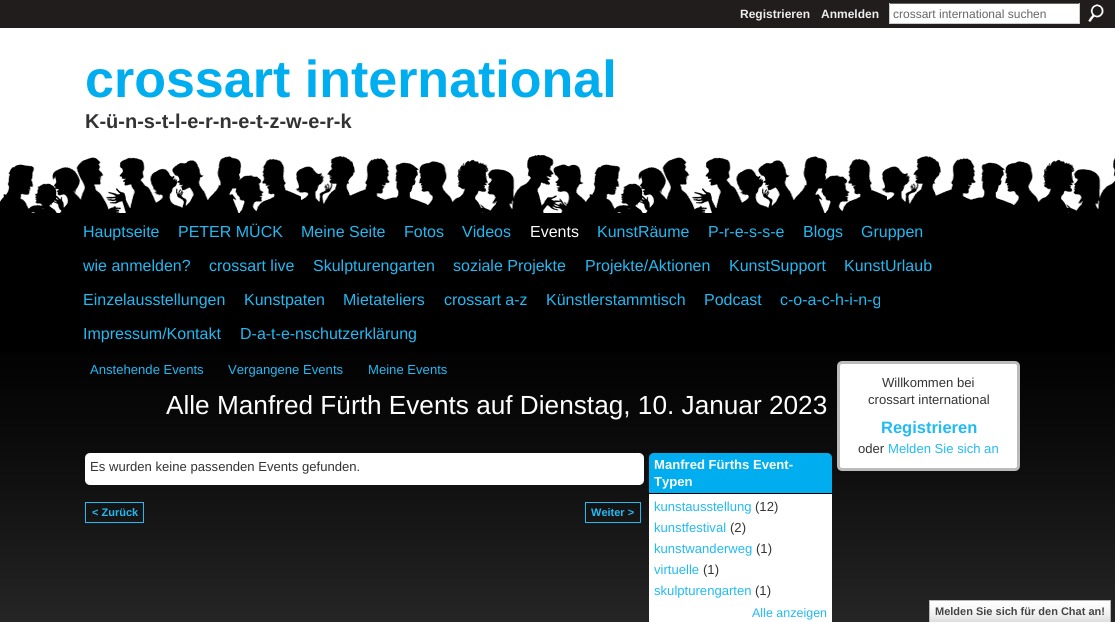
#include <cairo.h>
#include <math.h>
#include <stddef.h>

static cairo_t *ctx;

static void use_color(int r, int g, int b) {
    cairo_set_source_rgb(ctx, r / 255.0, g / 255.0, b / 255.0);
}

static void round_rect(double x, double y, double w, double h, double r) {
    cairo_new_sub_path(ctx);
    cairo_arc(ctx, x + w - r, y + h - r, r, 0, M_PI / 2);
    cairo_arc(ctx, x + r, y + h - r, r, M_PI / 2, M_PI);
    cairo_arc(ctx, x + r, y + r, r, M_PI, 1.5 * M_PI);
    cairo_arc(ctx, x + w - r, y + r, r, 1.5 * M_PI, 2 * M_PI);
    cairo_close_path(ctx);
}

static void picture(const char *path, double x, double y, double w, double h) {
    cairo_surface_t *image = cairo_image_surface_create_from_png(path);
    cairo_save(ctx);
    cairo_set_source_surface(ctx, image, x, y);
    cairo_rectangle(ctx, x, y, w, h);
    cairo_fill(ctx);
    cairo_restore(ctx);
    cairo_surface_destroy(image);
}

int main(void) {
    cairo_surface_t *surface = cairo_image_surface_create(CAIRO_FORMAT_RGB24, 1115, 622);
    ctx = cairo_create(surface);
    cairo_font_options_t *options = cairo_font_options_create();
    cairo_font_options_set_hint_metrics(options, CAIRO_HINT_METRICS_OFF);
    cairo_font_options_set_hint_style(options, CAIRO_HINT_STYLE_NONE);
    cairo_set_font_options(ctx, options);
    cairo_set_miter_limit(ctx, 4);
    use_color(255, 255, 255);
    cairo_paint(ctx);
    picture("img1.png", 0, 351, 1115, 271);
    use_color(33, 29, 28);
    cairo_rectangle(ctx, 0, 0, 1115, 28);
    cairo_fill(ctx);
    cairo_select_font_face(ctx, "Liberation Sans", CAIRO_FONT_SLANT_NORMAL, CAIRO_FONT_WEIGHT_BOLD);
    cairo_set_font_size(ctx, 12);
    use_color(238, 238, 238);
    cairo_move_to(ctx, 740, 18);
    cairo_show_text(ctx, "Registrieren");
    cairo_move_to(ctx, 821, 18);
    cairo_show_text(ctx, "Anmelden");
    use_color(255, 255, 255);
    cairo_rectangle(ctx, 890, 4, 189, 19);
    cairo_fill(ctx);
    use_color(102, 102, 102);
    cairo_rectangle(ctx, 889, 3, 191, 1);
    cairo_fill(ctx);
    use_color(204, 204, 204);
    cairo_rectangle(ctx, 1079, 3, 1, 21);
    cairo_fill(ctx);
    cairo_rectangle(ctx, 889, 23, 191, 1);
    cairo_fill(ctx);
    cairo_rectangle(ctx, 889, 3, 1, 21);
    cairo_fill(ctx);
    cairo_select_font_face(ctx, "Liberation Sans", CAIRO_FONT_SLANT_NORMAL, CAIRO_FONT_WEIGHT_NORMAL);
    use_color(102, 102, 102);
    cairo_move_to(ctx, 893, 18);
    cairo_show_text(ctx, "crossart international suchen");
    picture("img2.png", 1088, 4, 16, 18);
    cairo_select_font_face(ctx, "Liberation Sans", CAIRO_FONT_SLANT_NORMAL, CAIRO_FONT_WEIGHT_BOLD);
    cairo_set_font_size(ctx, 52);
    use_color(0, 173, 239);
    cairo_move_to(ctx, 85, 97);
    cairo_show_text(ctx, "crossart international");
    cairo_set_font_size(ctx, 20);
    use_color(51, 51, 51);
    cairo_move_to(ctx, 85, 128);
    cairo_show_text(ctx, "K-ü-n-s-t-l-e-r-n-e-t-z-w-e-r-k");
    use_color(0, 0, 0);
    cairo_rectangle(ctx, 0, 213, 1115, 138);
    cairo_fill(ctx);
    picture("img3.png", 0, 155, 1115, 58);
    cairo_select_font_face(ctx, "Liberation Sans", CAIRO_FONT_SLANT_NORMAL, CAIRO_FONT_WEIGHT_NORMAL);
    cairo_set_font_size(ctx, 16);
    use_color(33, 186, 243);
    cairo_move_to(ctx, 83, 237);
    cairo_show_text(ctx, "Hauptseite");
    cairo_move_to(ctx, 178, 237);
    cairo_show_text(ctx, "PETER MÜCK");
    cairo_move_to(ctx, 301, 237);
    cairo_show_text(ctx, "Meine Seite");
    cairo_move_to(ctx, 404, 237);
    cairo_show_text(ctx, "Fotos");
    cairo_move_to(ctx, 462, 237);
    cairo_show_text(ctx, "Videos");
    use_color(255, 255, 255);
    cairo_move_to(ctx, 530, 237);
    cairo_show_text(ctx, "Events");
    use_color(33, 186, 243);
    cairo_move_to(ctx, 597, 237);
    cairo_show_text(ctx, "KunstRäume");
    cairo_move_to(ctx, 708, 237);
    cairo_show_text(ctx, "P-r-e-s-s-e");
    cairo_move_to(ctx, 803, 237);
    cairo_show_text(ctx, "Blogs");
    cairo_move_to(ctx, 861, 237);
    cairo_show_text(ctx, "Gruppen");
    cairo_move_to(ctx, 83, 271);
    cairo_show_text(ctx, "wie anmelden?");
    cairo_move_to(ctx, 209, 271);
    cairo_show_text(ctx, "crossart live");
    cairo_move_to(ctx, 313, 271);
    cairo_show_text(ctx, "Skulpturengarten");
    cairo_move_to(ctx, 453, 271);
    cairo_show_text(ctx, "soziale Projekte");
    cairo_move_to(ctx, 585, 271);
    cairo_show_text(ctx, "Projekte/Aktionen");
    cairo_move_to(ctx, 729, 271);
    cairo_show_text(ctx, "KunstSupport");
    cairo_move_to(ctx, 844, 271);
    cairo_show_text(ctx, "KunstUrlaub");
    cairo_move_to(ctx, 83, 305);
    cairo_show_text(ctx, "Einzelausstellungen");
    cairo_move_to(ctx, 244, 305);
    cairo_show_text(ctx, "Kunstpaten");
    cairo_move_to(ctx, 343, 305);
    cairo_show_text(ctx, "Mietateliers");
    cairo_move_to(ctx, 444, 305);
    cairo_show_text(ctx, "crossart a-z");
    cairo_move_to(ctx, 546, 305);
    cairo_show_text(ctx, "Künstlerstammtisch");
    cairo_move_to(ctx, 704, 305);
    cairo_show_text(ctx, "Podcast");
    cairo_move_to(ctx, 780, 305);
    cairo_show_text(ctx, "c-o-a-c-h-i-n-g");
    cairo_move_to(ctx, 83, 339);
    cairo_show_text(ctx, "Impressum/Kontakt");
    cairo_move_to(ctx, 240, 339);
    cairo_show_text(ctx, "D-a-t-e-nschutzerklärung");
    cairo_set_font_size(ctx, 13.1);
    cairo_move_to(ctx, 90, 374);
    cairo_show_text(ctx, "Anstehende Events");
    cairo_move_to(ctx, 228, 374);
    cairo_show_text(ctx, "Vergangene Events");
    cairo_move_to(ctx, 368, 374);
    cairo_show_text(ctx, "Meine Events");
    cairo_set_font_size(ctx, 26.2);
    use_color(255, 255, 255);
    cairo_move_to(ctx, 166, 414);
    cairo_show_text(ctx, "Alle Manfred Fürth Events auf Dienstag, 10. Januar 2023");
    round_rect(85, 453, 559, 32, 5);
    cairo_fill(ctx);
    cairo_set_font_size(ctx, 13.1);
    use_color(51, 51, 51);
    cairo_move_to(ctx, 90, 471);
    cairo_show_text(ctx, "Es wurden keine passenden Events gefunden.");
    cairo_rectangle(ctx, 85.5, 502.5, 58, 20);
    use_color(33, 186, 243);
    cairo_set_line_width(ctx, 1);
    cairo_stroke(ctx);
    cairo_select_font_face(ctx, "Liberation Sans", CAIRO_FONT_SLANT_NORMAL, CAIRO_FONT_WEIGHT_BOLD);
    cairo_set_font_size(ctx, 11);
    cairo_move_to(ctx, 92, 516);
    cairo_show_text(ctx, "< Zurück");
    cairo_rectangle(ctx, 585.5, 502.5, 55, 20);
    cairo_stroke(ctx);
    cairo_move_to(ctx, 591, 516);
    cairo_show_text(ctx, "Weiter >");
    use_color(0, 173, 239);
    cairo_new_path(ctx);
    cairo_move_to(ctx, 654, 453);
    cairo_line_to(ctx, 827, 453);
    cairo_curve_to(ctx, 830, 453, 832, 455, 832, 458);
    cairo_line_to(ctx, 832, 494);
    cairo_line_to(ctx, 649, 494);
    cairo_line_to(ctx, 649, 458);
    cairo_curve_to(ctx, 649, 455, 651, 453, 654, 453);
    cairo_close_path(ctx);
    cairo_fill(ctx);
    use_color(0, 0, 0);
    cairo_rectangle(ctx, 649, 493, 183, 1);
    cairo_fill(ctx);
    cairo_set_font_size(ctx, 13.1);
    use_color(255, 255, 255);
    cairo_move_to(ctx, 654, 469);
    cairo_show_text(ctx, "Manfred Fürths Event-");
    cairo_move_to(ctx, 654, 486);
    cairo_show_text(ctx, "Typen");
    cairo_rectangle(ctx, 649, 494, 183, 128);
    cairo_fill(ctx);
    cairo_select_font_face(ctx, "Liberation Sans", CAIRO_FONT_SLANT_NORMAL, CAIRO_FONT_WEIGHT_NORMAL);
    use_color(33, 186, 243);
    cairo_move_to(ctx, 654, 511);
    cairo_show_text(ctx, "kunstausstellung");
    use_color(51, 51, 51);
    cairo_move_to(ctx, 755, 511);
    cairo_show_text(ctx, "(12)");
    use_color(33, 186, 243);
    cairo_move_to(ctx, 654, 532);
    cairo_show_text(ctx, "kunstfestival");
    use_color(51, 51, 51);
    cairo_move_to(ctx, 730, 532);
    cairo_show_text(ctx, "(2)");
    use_color(33, 186, 243);
    cairo_move_to(ctx, 654, 553);
    cairo_show_text(ctx, "kunstwanderweg");
    use_color(51, 51, 51);
    cairo_move_to(ctx, 756, 553);
    cairo_show_text(ctx, "(1)");
    use_color(33, 186, 243);
    cairo_move_to(ctx, 654, 574);
    cairo_show_text(ctx, "virtuelle");
    use_color(51, 51, 51);
    cairo_move_to(ctx, 703, 574);
    cairo_show_text(ctx, "(1)");
    use_color(33, 186, 243);
    cairo_move_to(ctx, 654, 595);
    cairo_show_text(ctx, "skulpturengarten");
    use_color(51, 51, 51);
    cairo_move_to(ctx, 755, 595);
    cairo_show_text(ctx, "(1)");
    cairo_set_font_size(ctx, 12.5);
    use_color(33, 186, 243);
    cairo_move_to(ctx, 752, 617);
    cairo_show_text(ctx, "Alle anzeigen");
    use_color(255, 255, 255);
    round_rect(838.5, 362.5, 180, 107, 3.5);
    cairo_fill_preserve(ctx);
    use_color(187, 187, 187);
    cairo_set_line_width(ctx, 3);
    cairo_stroke(ctx);
    cairo_set_font_size(ctx, 13.1);
    use_color(51, 51, 51);
    cairo_move_to(ctx, 882, 387);
    cairo_show_text(ctx, "Willkommen bei");
    cairo_move_to(ctx, 868, 404);
    cairo_show_text(ctx, "crossart international");
    cairo_select_font_face(ctx, "Liberation Sans", CAIRO_FONT_SLANT_NORMAL, CAIRO_FONT_WEIGHT_BOLD);
    cairo_set_font_size(ctx, 16.5);
    use_color(33, 186, 243);
    cairo_move_to(ctx, 881, 433);
    cairo_show_text(ctx, "Registrieren");
    cairo_select_font_face(ctx, "Liberation Sans", CAIRO_FONT_SLANT_NORMAL, CAIRO_FONT_WEIGHT_NORMAL);
    cairo_set_font_size(ctx, 13.1);
    use_color(51, 51, 51);
    cairo_move_to(ctx, 858, 453);
    cairo_show_text(ctx, "oder");
    use_color(33, 186, 243);
    cairo_move_to(ctx, 888, 453);
    cairo_show_text(ctx, "Melden Sie sich an");
    picture("img4.png", 930, 601, 180, 21);
    cairo_rectangle(ctx, 929.5, 600.5, 181, 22);
    use_color(183, 183, 183);
    cairo_set_line_width(ctx, 1);
    cairo_stroke(ctx);
    cairo_select_font_face(ctx, "Liberation Sans", CAIRO_FONT_SLANT_NORMAL, CAIRO_FONT_WEIGHT_BOLD);
    cairo_set_font_size(ctx, 11);
    use_color(69, 69, 69);
    cairo_move_to(ctx, 935, 615);
    cairo_show_text(ctx, "Melden Sie sich für den Chat an!");
    cairo_surface_write_to_png(surface, "result.png");
    cairo_font_options_destroy(options);
    cairo_destroy(ctx);
    cairo_surface_destroy(surface);
    return 0;
}
